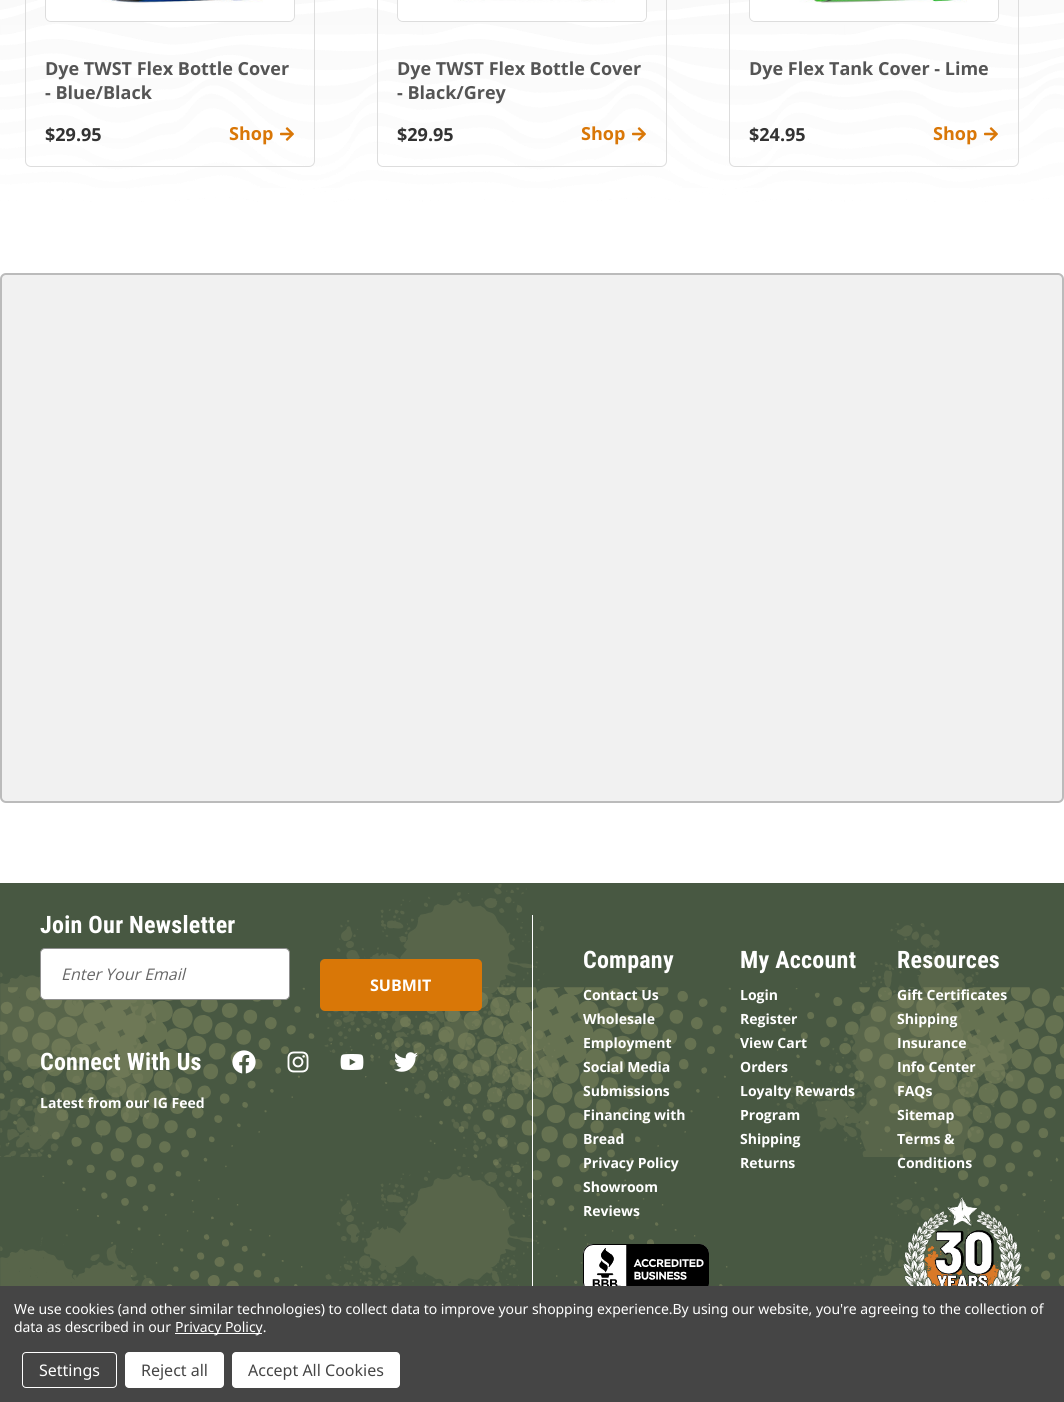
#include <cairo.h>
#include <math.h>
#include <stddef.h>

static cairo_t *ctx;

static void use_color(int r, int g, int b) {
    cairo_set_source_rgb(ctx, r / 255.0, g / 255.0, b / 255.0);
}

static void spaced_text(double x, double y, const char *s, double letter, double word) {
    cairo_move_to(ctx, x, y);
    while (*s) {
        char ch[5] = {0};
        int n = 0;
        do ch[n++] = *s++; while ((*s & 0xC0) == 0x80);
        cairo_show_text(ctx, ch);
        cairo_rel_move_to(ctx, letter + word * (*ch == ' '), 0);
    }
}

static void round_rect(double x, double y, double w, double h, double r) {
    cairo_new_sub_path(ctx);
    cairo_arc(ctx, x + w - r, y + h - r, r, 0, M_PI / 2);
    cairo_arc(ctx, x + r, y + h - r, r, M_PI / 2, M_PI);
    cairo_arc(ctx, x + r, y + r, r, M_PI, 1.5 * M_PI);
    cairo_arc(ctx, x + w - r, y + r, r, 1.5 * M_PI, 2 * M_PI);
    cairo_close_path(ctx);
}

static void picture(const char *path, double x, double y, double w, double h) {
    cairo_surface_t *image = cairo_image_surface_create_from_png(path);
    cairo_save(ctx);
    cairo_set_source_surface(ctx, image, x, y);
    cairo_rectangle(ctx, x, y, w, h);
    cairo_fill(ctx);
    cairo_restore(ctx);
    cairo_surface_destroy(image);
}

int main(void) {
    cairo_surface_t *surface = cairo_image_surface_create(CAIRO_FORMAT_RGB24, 1064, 1402);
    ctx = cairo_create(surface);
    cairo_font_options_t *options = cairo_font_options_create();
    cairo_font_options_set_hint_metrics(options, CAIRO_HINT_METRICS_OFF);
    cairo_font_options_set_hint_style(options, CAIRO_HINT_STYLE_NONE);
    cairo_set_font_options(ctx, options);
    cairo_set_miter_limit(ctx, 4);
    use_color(255, 255, 255);
    cairo_paint(ctx);
    picture("img1.png", 0, 0, 1064, 210);
    round_rect(25.5, -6.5, 289, 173, 5.5);
    use_color(221, 221, 221);
    cairo_set_line_width(ctx, 1);
    cairo_stroke(ctx);
    round_rect(45.5, -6.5, 249, 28, 5.5);
    cairo_stroke(ctx);
    picture("img2.png", 46, 0, 248, 21);
    cairo_select_font_face(ctx, "Open Sans", CAIRO_FONT_SLANT_NORMAL, CAIRO_FONT_WEIGHT_BOLD);
    cairo_set_font_size(ctx, 18);
    use_color(85, 85, 85);
    cairo_move_to(ctx, 45, 75);
    cairo_show_text(ctx, "Dye TWST Flex Bottle Cover");
    cairo_move_to(ctx, 45, 99);
    cairo_show_text(ctx, "- Blue/Black");
    use_color(51, 51, 51);
    cairo_move_to(ctx, 45, 141);
    cairo_show_text(ctx, "$29.95");
    use_color(217, 119, 7);
    cairo_move_to(ctx, 229, 140);
    cairo_show_text(ctx, "Shop");
    picture("img3.png", 280, 127, 14, 14);
    round_rect(377.5, -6.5, 289, 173, 5.5);
    use_color(221, 221, 221);
    cairo_stroke(ctx);
    round_rect(397.5, -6.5, 249, 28, 5.5);
    cairo_stroke(ctx);
    picture("img4.png", 398, 0, 248, 21);
    use_color(85, 85, 85);
    cairo_move_to(ctx, 397, 75);
    cairo_show_text(ctx, "Dye TWST Flex Bottle Cover");
    cairo_move_to(ctx, 397, 99);
    cairo_show_text(ctx, "- Black/Grey");
    use_color(51, 51, 51);
    cairo_move_to(ctx, 397, 141);
    cairo_show_text(ctx, "$29.95");
    use_color(217, 119, 7);
    cairo_move_to(ctx, 581, 140);
    cairo_show_text(ctx, "Shop");
    picture("img5.png", 632, 127, 14, 14);
    round_rect(729.5, -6.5, 289, 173, 5.5);
    use_color(221, 221, 221);
    cairo_stroke(ctx);
    round_rect(749.5, -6.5, 249, 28, 5.5);
    cairo_stroke(ctx);
    picture("img6.png", 750, 0, 248, 21);
    use_color(85, 85, 85);
    cairo_move_to(ctx, 749, 75);
    cairo_show_text(ctx, "Dye Flex Tank Cover - Lime");
    use_color(51, 51, 51);
    cairo_move_to(ctx, 749, 141);
    cairo_show_text(ctx, "$24.95");
    use_color(217, 119, 7);
    cairo_move_to(ctx, 933, 140);
    cairo_show_text(ctx, "Shop");
    picture("img7.png", 984, 127, 14, 14);
    use_color(241, 241, 241);
    round_rect(1, 274, 1062, 528, 5);
    cairo_fill_preserve(ctx);
    use_color(187, 187, 187);
    cairo_set_line_width(ctx, 2);
    cairo_stroke(ctx);
    use_color(72, 88, 66);
    cairo_rectangle(ctx, 0, 883, 1064, 403);
    cairo_fill(ctx);
    picture("img8.png", 0, 884, 1064, 402);
    cairo_select_font_face(ctx, "Roboto Condensed", CAIRO_FONT_SLANT_NORMAL, CAIRO_FONT_WEIGHT_BOLD);
    cairo_set_font_size(ctx, 24);
    use_color(255, 255, 255);
    spaced_text(40, 933, "Join Our Newsletter", 0.25, 0);
    round_rect(40.5, 948.5, 249, 51, 4.5);
    cairo_fill_preserve(ctx);
    use_color(143, 143, 143);
    cairo_set_line_width(ctx, 1);
    cairo_stroke(ctx);
    cairo_select_font_face(ctx, "Open Sans", CAIRO_FONT_SLANT_ITALIC, CAIRO_FONT_WEIGHT_NORMAL);
    cairo_set_font_size(ctx, 16);
    use_color(102, 102, 102);
    cairo_move_to(ctx, 61, 980);
    cairo_show_text(ctx, "Enter Your Email");
    use_color(217, 119, 7);
    round_rect(320, 959, 162, 52, 5);
    cairo_fill(ctx);
    cairo_select_font_face(ctx, "Open Sans", CAIRO_FONT_SLANT_NORMAL, CAIRO_FONT_WEIGHT_BOLD);
    use_color(255, 255, 255);
    cairo_move_to(ctx, 370, 991);
    cairo_show_text(ctx, "SUBMIT");
    cairo_select_font_face(ctx, "Roboto Condensed", CAIRO_FONT_SLANT_NORMAL, CAIRO_FONT_WEIGHT_BOLD);
    cairo_set_font_size(ctx, 24);
    spaced_text(40, 1070, "Connect With Us", 0.25, 0);
    picture("img9.png", 232, 1050, 24, 24);
    picture("img10.png", 287, 1051, 22, 22);
    picture("img11.png", 340, 1054, 24, 16);
    picture("img12.png", 394, 1052, 24, 20);
    cairo_select_font_face(ctx, "Open Sans", CAIRO_FONT_SLANT_NORMAL, CAIRO_FONT_WEIGHT_BOLD);
    cairo_set_font_size(ctx, 14);
    cairo_move_to(ctx, 40, 1108);
    cairo_show_text(ctx, "Latest from our IG Feed");
    cairo_rectangle(ctx, 532, 915, 1, 371);
    cairo_fill(ctx);
    cairo_select_font_face(ctx, "Roboto Condensed", CAIRO_FONT_SLANT_NORMAL, CAIRO_FONT_WEIGHT_BOLD);
    cairo_set_font_size(ctx, 24);
    spaced_text(583, 968, "Company", 0.25, 0);
    cairo_select_font_face(ctx, "Open Sans", CAIRO_FONT_SLANT_NORMAL, CAIRO_FONT_WEIGHT_BOLD);
    cairo_set_font_size(ctx, 14);
    cairo_move_to(ctx, 583, 1000);
    cairo_show_text(ctx, "Contact Us");
    cairo_move_to(ctx, 583, 1024);
    cairo_show_text(ctx, "Wholesale");
    cairo_move_to(ctx, 583, 1048);
    cairo_show_text(ctx, "Employment");
    cairo_move_to(ctx, 583, 1072);
    cairo_show_text(ctx, "Social Media");
    cairo_move_to(ctx, 583, 1096);
    cairo_show_text(ctx, "Submissions");
    cairo_move_to(ctx, 583, 1120);
    cairo_show_text(ctx, "Financing with");
    cairo_move_to(ctx, 583, 1144);
    cairo_show_text(ctx, "Bread");
    cairo_move_to(ctx, 583, 1168);
    cairo_show_text(ctx, "Privacy Policy");
    cairo_move_to(ctx, 583, 1192);
    cairo_show_text(ctx, "Showroom");
    cairo_move_to(ctx, 583, 1216);
    cairo_show_text(ctx, "Reviews");
    picture("img13.png", 583, 1244, 126, 42);
    cairo_select_font_face(ctx, "Roboto Condensed", CAIRO_FONT_SLANT_NORMAL, CAIRO_FONT_WEIGHT_BOLD);
    cairo_set_font_size(ctx, 24);
    spaced_text(740, 968, "My Account", 0.25, 0);
    cairo_select_font_face(ctx, "Open Sans", CAIRO_FONT_SLANT_NORMAL, CAIRO_FONT_WEIGHT_BOLD);
    cairo_set_font_size(ctx, 14);
    cairo_move_to(ctx, 740, 1000);
    cairo_show_text(ctx, "Login");
    cairo_move_to(ctx, 740, 1024);
    cairo_show_text(ctx, "Register");
    cairo_move_to(ctx, 740, 1048);
    cairo_show_text(ctx, "View Cart");
    cairo_move_to(ctx, 740, 1072);
    cairo_show_text(ctx, "Orders");
    cairo_move_to(ctx, 740, 1096);
    cairo_show_text(ctx, "Loyalty Rewards");
    cairo_move_to(ctx, 740, 1120);
    cairo_show_text(ctx, "Program");
    cairo_move_to(ctx, 740, 1144);
    cairo_show_text(ctx, "Shipping");
    cairo_move_to(ctx, 740, 1168);
    cairo_show_text(ctx, "Returns");
    cairo_select_font_face(ctx, "Roboto Condensed", CAIRO_FONT_SLANT_NORMAL, CAIRO_FONT_WEIGHT_BOLD);
    cairo_set_font_size(ctx, 24);
    spaced_text(897, 968, "Resources", 0.25, 0);
    cairo_select_font_face(ctx, "Open Sans", CAIRO_FONT_SLANT_NORMAL, CAIRO_FONT_WEIGHT_BOLD);
    cairo_set_font_size(ctx, 14);
    cairo_move_to(ctx, 897, 1000);
    cairo_show_text(ctx, "Gift Certificates");
    cairo_move_to(ctx, 897, 1024);
    cairo_show_text(ctx, "Shipping");
    cairo_move_to(ctx, 897, 1048);
    cairo_show_text(ctx, "Insurance");
    cairo_move_to(ctx, 897, 1072);
    cairo_show_text(ctx, "Info Center");
    cairo_move_to(ctx, 897, 1096);
    cairo_show_text(ctx, "FAQs");
    cairo_move_to(ctx, 897, 1120);
    cairo_show_text(ctx, "Sitemap");
    cairo_move_to(ctx, 897, 1144);
    cairo_show_text(ctx, "Terms &");
    cairo_move_to(ctx, 897, 1168);
    cairo_show_text(ctx, "Conditions");
    picture("img14.png", 902, 1196, 120, 90);
    use_color(69, 69, 69);
    cairo_rectangle(ctx, 0, 1286, 1064, 116);
    cairo_fill(ctx);
    cairo_select_font_face(ctx, "Noto Sans", CAIRO_FONT_SLANT_NORMAL, CAIRO_FONT_WEIGHT_NORMAL);
    use_color(255, 255, 255);
    spaced_text(14, 1314, "We use cookies (and other similar technologies) to collect data to improve your shopping experience.By using our website, you're agreeing to the collection of", -0.05, 0);
    spaced_text(14, 1332, "data as described in our", -0.05, 0);
    cairo_rectangle(ctx, 175, 1333, 87, 1);
    cairo_fill(ctx);
    spaced_text(175, 1332, "Privacy Policy.", -0.05, 0);
    round_rect(22.5, 1352.5, 94, 35, 3.5);
    cairo_stroke(ctx);
    cairo_set_font_size(ctx, 16);
    cairo_move_to(ctx, 39, 1376);
    cairo_show_text(ctx, "Settings");
    round_rect(125, 1352, 99, 36, 4);
    cairo_fill(ctx);
    use_color(69, 69, 69);
    cairo_move_to(ctx, 141, 1376);
    cairo_show_text(ctx, "Reject all");
    use_color(255, 255, 255);
    round_rect(232, 1352, 168, 36, 4);
    cairo_fill(ctx);
    use_color(69, 69, 69);
    cairo_move_to(ctx, 248, 1376);
    cairo_show_text(ctx, "Accept All Cookies");
    cairo_surface_write_to_png(surface, "result.png");
    cairo_font_options_destroy(options);
    cairo_destroy(ctx);
    cairo_surface_destroy(surface);
    return 0;
}
